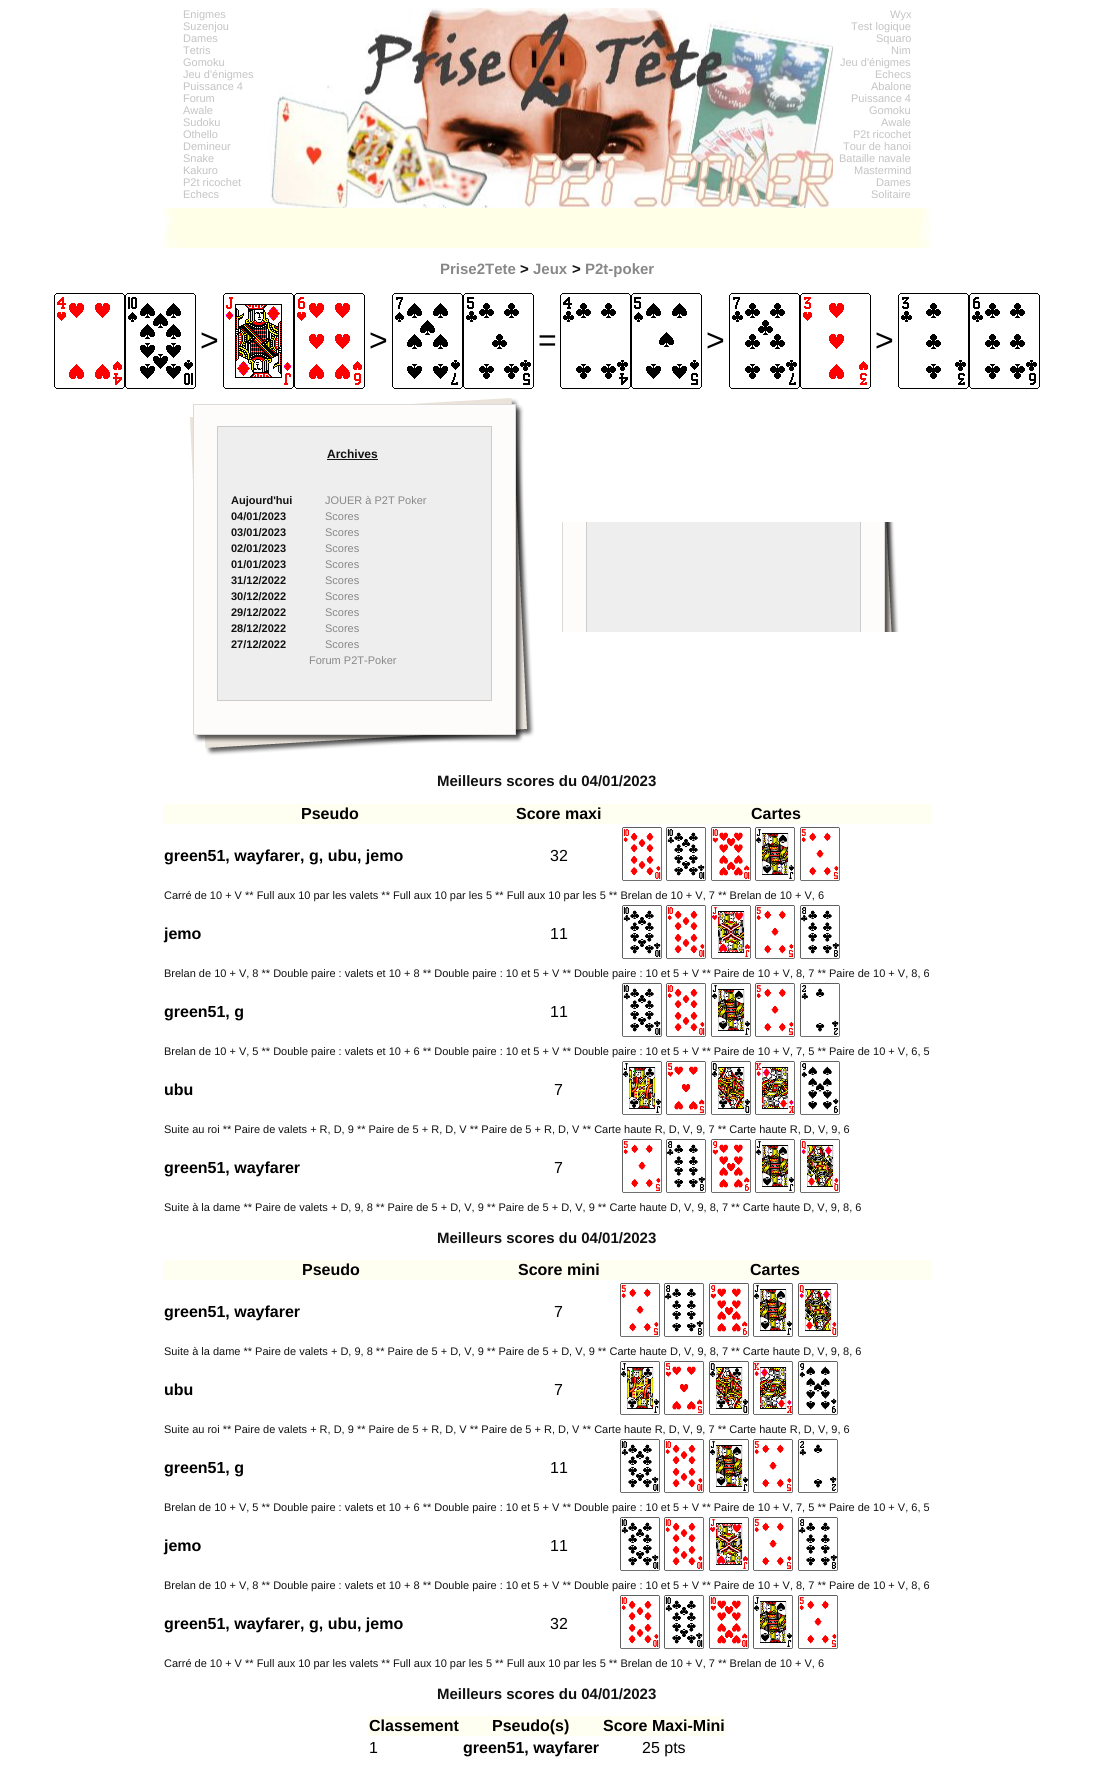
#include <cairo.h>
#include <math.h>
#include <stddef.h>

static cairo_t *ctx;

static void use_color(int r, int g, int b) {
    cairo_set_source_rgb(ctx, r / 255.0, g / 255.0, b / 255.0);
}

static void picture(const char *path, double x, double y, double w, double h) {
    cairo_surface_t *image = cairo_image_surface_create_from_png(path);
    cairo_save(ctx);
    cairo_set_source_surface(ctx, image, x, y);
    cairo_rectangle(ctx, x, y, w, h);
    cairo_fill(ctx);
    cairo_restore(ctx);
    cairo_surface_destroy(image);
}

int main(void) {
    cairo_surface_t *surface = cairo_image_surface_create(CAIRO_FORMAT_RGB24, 1094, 1765);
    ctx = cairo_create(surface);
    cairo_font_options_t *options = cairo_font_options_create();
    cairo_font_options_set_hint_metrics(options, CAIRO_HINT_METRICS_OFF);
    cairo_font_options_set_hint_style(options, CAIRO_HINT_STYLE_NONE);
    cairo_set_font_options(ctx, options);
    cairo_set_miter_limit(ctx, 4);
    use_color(255, 255, 255);
    cairo_paint(ctx);
    picture("img1.png", 267, 8, 566, 200);
    cairo_select_font_face(ctx, "Liberation Sans", CAIRO_FONT_SLANT_NORMAL, CAIRO_FONT_WEIGHT_NORMAL);
    cairo_set_font_size(ctx, 11);
    use_color(196, 196, 196);
    cairo_move_to(ctx, 183, 18);
    cairo_show_text(ctx, "Enigmes");
    cairo_move_to(ctx, 183, 30);
    cairo_show_text(ctx, "Suzenjou");
    cairo_move_to(ctx, 183, 42);
    cairo_show_text(ctx, "Dames");
    cairo_move_to(ctx, 183, 54);
    cairo_show_text(ctx, "Tetris");
    cairo_move_to(ctx, 183, 66);
    cairo_show_text(ctx, "Gomoku");
    cairo_move_to(ctx, 183, 78);
    cairo_show_text(ctx, "Jeu d'énigmes");
    cairo_move_to(ctx, 183, 90);
    cairo_show_text(ctx, "Puissance 4");
    cairo_move_to(ctx, 183, 102);
    cairo_show_text(ctx, "Forum");
    cairo_move_to(ctx, 183, 114);
    cairo_show_text(ctx, "Awale");
    cairo_move_to(ctx, 183, 126);
    cairo_show_text(ctx, "Sudoku");
    cairo_move_to(ctx, 183, 138);
    cairo_show_text(ctx, "Othello");
    cairo_move_to(ctx, 183, 150);
    cairo_show_text(ctx, "Demineur");
    cairo_move_to(ctx, 183, 162);
    cairo_show_text(ctx, "Snake");
    cairo_move_to(ctx, 183, 174);
    cairo_show_text(ctx, "Kakuro");
    cairo_move_to(ctx, 183, 186);
    cairo_show_text(ctx, "P2t ricochet");
    cairo_move_to(ctx, 183, 198);
    cairo_show_text(ctx, "Echecs");
    cairo_move_to(ctx, 890, 18);
    cairo_show_text(ctx, "Wyx");
    cairo_move_to(ctx, 851, 30);
    cairo_show_text(ctx, "Test logique");
    cairo_move_to(ctx, 876, 42);
    cairo_show_text(ctx, "Squaro");
    cairo_move_to(ctx, 891, 54);
    cairo_show_text(ctx, "Nim");
    cairo_move_to(ctx, 840, 66);
    cairo_show_text(ctx, "Jeu d'énigmes");
    cairo_move_to(ctx, 875, 78);
    cairo_show_text(ctx, "Echecs");
    cairo_move_to(ctx, 871, 90);
    cairo_show_text(ctx, "Abalone");
    cairo_move_to(ctx, 851, 102);
    cairo_show_text(ctx, "Puissance 4");
    cairo_move_to(ctx, 869, 114);
    cairo_show_text(ctx, "Gomoku");
    cairo_move_to(ctx, 881, 126);
    cairo_show_text(ctx, "Awale");
    cairo_move_to(ctx, 853, 138);
    cairo_show_text(ctx, "P2t ricochet");
    cairo_move_to(ctx, 843, 150);
    cairo_show_text(ctx, "Tour de hanoi");
    cairo_move_to(ctx, 839, 162);
    cairo_show_text(ctx, "Bataille navale");
    cairo_move_to(ctx, 854, 174);
    cairo_show_text(ctx, "Mastermind");
    cairo_move_to(ctx, 876, 186);
    cairo_show_text(ctx, "Dames");
    cairo_move_to(ctx, 871, 198);
    cairo_show_text(ctx, "Solitaire");
    picture("img2.png", 163, 208, 768, 40);
    cairo_select_font_face(ctx, "Liberation Sans", CAIRO_FONT_SLANT_NORMAL, CAIRO_FONT_WEIGHT_BOLD);
    cairo_set_font_size(ctx, 15);
    use_color(136, 136, 136);
    cairo_move_to(ctx, 440, 274);
    cairo_show_text(ctx, "Prise2Tete");
    use_color(17, 17, 17);
    cairo_move_to(ctx, 520, 274);
    cairo_show_text(ctx, ">");
    use_color(136, 136, 136);
    cairo_move_to(ctx, 533, 274);
    cairo_show_text(ctx, "Jeux");
    use_color(17, 17, 17);
    cairo_move_to(ctx, 572, 274);
    cairo_show_text(ctx, ">");
    use_color(136, 136, 136);
    cairo_move_to(ctx, 585, 274);
    cairo_show_text(ctx, "P2t-poker");
    picture("img3.png", 54, 293, 71, 96);
    picture("img4.png", 125, 293, 71, 96);
    cairo_select_font_face(ctx, "Liberation Sans", CAIRO_FONT_SLANT_NORMAL, CAIRO_FONT_WEIGHT_NORMAL);
    cairo_set_font_size(ctx, 32);
    use_color(0, 0, 0);
    cairo_move_to(ctx, 200, 351);
    cairo_show_text(ctx, ">");
    picture("img5.png", 223, 293, 71, 96);
    picture("img6.png", 294, 293, 71, 96);
    cairo_move_to(ctx, 369, 351);
    cairo_show_text(ctx, ">");
    picture("img7.png", 392, 293, 71, 96);
    picture("img8.png", 463, 293, 71, 96);
    cairo_move_to(ctx, 538, 351);
    cairo_show_text(ctx, "=");
    picture("img9.png", 560, 293, 71, 96);
    picture("img10.png", 631, 293, 71, 96);
    cairo_move_to(ctx, 706, 351);
    cairo_show_text(ctx, ">");
    picture("img11.png", 729, 293, 71, 96);
    picture("img12.png", 800, 293, 71, 96);
    cairo_move_to(ctx, 875, 351);
    cairo_show_text(ctx, ">");
    picture("img13.png", 898, 293, 71, 96);
    picture("img14.png", 969, 293, 71, 96);
    picture("img15.png", 190, 398, 345, 358);
    cairo_select_font_face(ctx, "Liberation Sans", CAIRO_FONT_SLANT_NORMAL, CAIRO_FONT_WEIGHT_BOLD);
    cairo_set_font_size(ctx, 12);
    use_color(17, 17, 17);
    cairo_move_to(ctx, 327, 458);
    cairo_show_text(ctx, "Archives");
    cairo_rectangle(ctx, 327, 459, 51, 1);
    cairo_fill(ctx);
    cairo_set_font_size(ctx, 11);
    cairo_move_to(ctx, 231, 504);
    cairo_show_text(ctx, "Aujourd'hui");
    cairo_select_font_face(ctx, "Liberation Sans", CAIRO_FONT_SLANT_NORMAL, CAIRO_FONT_WEIGHT_NORMAL);
    use_color(136, 136, 136);
    cairo_move_to(ctx, 325, 504);
    cairo_show_text(ctx, "JOUER à P2T Poker");
    cairo_select_font_face(ctx, "Liberation Sans", CAIRO_FONT_SLANT_NORMAL, CAIRO_FONT_WEIGHT_BOLD);
    use_color(17, 17, 17);
    cairo_move_to(ctx, 231, 520);
    cairo_show_text(ctx, "04/01/2023");
    cairo_select_font_face(ctx, "Liberation Sans", CAIRO_FONT_SLANT_NORMAL, CAIRO_FONT_WEIGHT_NORMAL);
    use_color(136, 136, 136);
    cairo_move_to(ctx, 325, 520);
    cairo_show_text(ctx, "Scores");
    cairo_select_font_face(ctx, "Liberation Sans", CAIRO_FONT_SLANT_NORMAL, CAIRO_FONT_WEIGHT_BOLD);
    use_color(17, 17, 17);
    cairo_move_to(ctx, 231, 536);
    cairo_show_text(ctx, "03/01/2023");
    cairo_select_font_face(ctx, "Liberation Sans", CAIRO_FONT_SLANT_NORMAL, CAIRO_FONT_WEIGHT_NORMAL);
    use_color(136, 136, 136);
    cairo_move_to(ctx, 325, 536);
    cairo_show_text(ctx, "Scores");
    cairo_select_font_face(ctx, "Liberation Sans", CAIRO_FONT_SLANT_NORMAL, CAIRO_FONT_WEIGHT_BOLD);
    use_color(17, 17, 17);
    cairo_move_to(ctx, 231, 552);
    cairo_show_text(ctx, "02/01/2023");
    cairo_select_font_face(ctx, "Liberation Sans", CAIRO_FONT_SLANT_NORMAL, CAIRO_FONT_WEIGHT_NORMAL);
    use_color(136, 136, 136);
    cairo_move_to(ctx, 325, 552);
    cairo_show_text(ctx, "Scores");
    cairo_select_font_face(ctx, "Liberation Sans", CAIRO_FONT_SLANT_NORMAL, CAIRO_FONT_WEIGHT_BOLD);
    use_color(17, 17, 17);
    cairo_move_to(ctx, 231, 568);
    cairo_show_text(ctx, "01/01/2023");
    cairo_select_font_face(ctx, "Liberation Sans", CAIRO_FONT_SLANT_NORMAL, CAIRO_FONT_WEIGHT_NORMAL);
    use_color(136, 136, 136);
    cairo_move_to(ctx, 325, 568);
    cairo_show_text(ctx, "Scores");
    cairo_select_font_face(ctx, "Liberation Sans", CAIRO_FONT_SLANT_NORMAL, CAIRO_FONT_WEIGHT_BOLD);
    use_color(17, 17, 17);
    cairo_move_to(ctx, 231, 584);
    cairo_show_text(ctx, "31/12/2022");
    cairo_select_font_face(ctx, "Liberation Sans", CAIRO_FONT_SLANT_NORMAL, CAIRO_FONT_WEIGHT_NORMAL);
    use_color(136, 136, 136);
    cairo_move_to(ctx, 325, 584);
    cairo_show_text(ctx, "Scores");
    cairo_select_font_face(ctx, "Liberation Sans", CAIRO_FONT_SLANT_NORMAL, CAIRO_FONT_WEIGHT_BOLD);
    use_color(17, 17, 17);
    cairo_move_to(ctx, 231, 600);
    cairo_show_text(ctx, "30/12/2022");
    cairo_select_font_face(ctx, "Liberation Sans", CAIRO_FONT_SLANT_NORMAL, CAIRO_FONT_WEIGHT_NORMAL);
    use_color(136, 136, 136);
    cairo_move_to(ctx, 325, 600);
    cairo_show_text(ctx, "Scores");
    cairo_select_font_face(ctx, "Liberation Sans", CAIRO_FONT_SLANT_NORMAL, CAIRO_FONT_WEIGHT_BOLD);
    use_color(17, 17, 17);
    cairo_move_to(ctx, 231, 616);
    cairo_show_text(ctx, "29/12/2022");
    cairo_select_font_face(ctx, "Liberation Sans", CAIRO_FONT_SLANT_NORMAL, CAIRO_FONT_WEIGHT_NORMAL);
    use_color(136, 136, 136);
    cairo_move_to(ctx, 325, 616);
    cairo_show_text(ctx, "Scores");
    cairo_select_font_face(ctx, "Liberation Sans", CAIRO_FONT_SLANT_NORMAL, CAIRO_FONT_WEIGHT_BOLD);
    use_color(17, 17, 17);
    cairo_move_to(ctx, 231, 632);
    cairo_show_text(ctx, "28/12/2022");
    cairo_select_font_face(ctx, "Liberation Sans", CAIRO_FONT_SLANT_NORMAL, CAIRO_FONT_WEIGHT_NORMAL);
    use_color(136, 136, 136);
    cairo_move_to(ctx, 325, 632);
    cairo_show_text(ctx, "Scores");
    cairo_select_font_face(ctx, "Liberation Sans", CAIRO_FONT_SLANT_NORMAL, CAIRO_FONT_WEIGHT_BOLD);
    use_color(17, 17, 17);
    cairo_move_to(ctx, 231, 648);
    cairo_show_text(ctx, "27/12/2022");
    cairo_select_font_face(ctx, "Liberation Sans", CAIRO_FONT_SLANT_NORMAL, CAIRO_FONT_WEIGHT_NORMAL);
    use_color(136, 136, 136);
    cairo_move_to(ctx, 325, 648);
    cairo_show_text(ctx, "Scores");
    cairo_move_to(ctx, 309, 664);
    cairo_show_text(ctx, "Forum P2T-Poker");
    picture("img16.png", 562, 522, 337, 110);
    cairo_select_font_face(ctx, "Liberation Sans", CAIRO_FONT_SLANT_NORMAL, CAIRO_FONT_WEIGHT_BOLD);
    cairo_set_font_size(ctx, 15);
    use_color(17, 17, 17);
    cairo_move_to(ctx, 437, 786);
    cairo_show_text(ctx, "Meilleurs scores du 04/01/2023");
    use_color(255, 255, 241);
    cairo_rectangle(ctx, 163, 804, 768, 20);
    cairo_fill(ctx);
    cairo_set_font_size(ctx, 16);
    use_color(0, 0, 0);
    cairo_move_to(ctx, 301, 819);
    cairo_show_text(ctx, "Pseudo");
    cairo_move_to(ctx, 516, 819);
    cairo_show_text(ctx, "Score maxi");
    cairo_move_to(ctx, 751, 819);
    cairo_show_text(ctx, "Cartes");
    cairo_move_to(ctx, 164, 861);
    cairo_show_text(ctx, "green51, wayfarer, g, ubu, jemo");
    cairo_select_font_face(ctx, "Liberation Sans", CAIRO_FONT_SLANT_NORMAL, CAIRO_FONT_WEIGHT_NORMAL);
    cairo_move_to(ctx, 550, 861);
    cairo_show_text(ctx, "32");
    picture("img17.png", 622, 827, 40, 54);
    picture("img18.png", 666, 827, 40, 54);
    picture("img19.png", 711, 827, 40, 54);
    picture("img20.png", 755, 827, 40, 54);
    picture("img21.png", 800, 827, 40, 54);
    cairo_set_font_size(ctx, 11);
    use_color(17, 17, 17);
    cairo_move_to(ctx, 164, 899);
    cairo_show_text(ctx, "Carré de 10 + V ** Full aux 10 par les valets ** Full aux 10 par les 5 ** Full aux 10 par les 5 ** Brelan de 10 + V, 7 ** Brelan de 10 + V, 6");
    cairo_select_font_face(ctx, "Liberation Sans", CAIRO_FONT_SLANT_NORMAL, CAIRO_FONT_WEIGHT_BOLD);
    cairo_set_font_size(ctx, 16);
    use_color(0, 0, 0);
    cairo_move_to(ctx, 164, 939);
    cairo_show_text(ctx, "jemo");
    cairo_select_font_face(ctx, "Liberation Sans", CAIRO_FONT_SLANT_NORMAL, CAIRO_FONT_WEIGHT_NORMAL);
    cairo_move_to(ctx, 550, 939);
    cairo_show_text(ctx, "11");
    picture("img18.png", 622, 905, 40, 54);
    picture("img17.png", 666, 905, 40, 54);
    picture("img22.png", 711, 905, 40, 54);
    picture("img23.png", 755, 905, 40, 54);
    picture("img24.png", 800, 905, 40, 54);
    cairo_set_font_size(ctx, 11);
    use_color(17, 17, 17);
    cairo_move_to(ctx, 164, 977);
    cairo_show_text(ctx, "Brelan de 10 + V, 8 ** Double paire : valets et 10 + 8 ** Double paire : 10 et 5 + V ** Double paire : 10 et 5 + V ** Paire de 10 + V, 8, 7 ** Paire de 10 + V, 8, 6");
    cairo_select_font_face(ctx, "Liberation Sans", CAIRO_FONT_SLANT_NORMAL, CAIRO_FONT_WEIGHT_BOLD);
    cairo_set_font_size(ctx, 16);
    use_color(0, 0, 0);
    cairo_move_to(ctx, 164, 1017);
    cairo_show_text(ctx, "green51, g");
    cairo_select_font_face(ctx, "Liberation Sans", CAIRO_FONT_SLANT_NORMAL, CAIRO_FONT_WEIGHT_NORMAL);
    cairo_move_to(ctx, 550, 1017);
    cairo_show_text(ctx, "11");
    picture("img18.png", 622, 983, 40, 54);
    picture("img17.png", 666, 983, 40, 54);
    picture("img25.png", 711, 983, 40, 54);
    picture("img23.png", 755, 983, 40, 54);
    picture("img26.png", 800, 983, 40, 54);
    cairo_set_font_size(ctx, 11);
    use_color(17, 17, 17);
    cairo_move_to(ctx, 164, 1055);
    cairo_show_text(ctx, "Brelan de 10 + V, 5 ** Double paire : valets et 10 + 6 ** Double paire : 10 et 5 + V ** Double paire : 10 et 5 + V ** Paire de 10 + V, 7, 5 ** Paire de 10 + V, 6, 5");
    cairo_select_font_face(ctx, "Liberation Sans", CAIRO_FONT_SLANT_NORMAL, CAIRO_FONT_WEIGHT_BOLD);
    cairo_set_font_size(ctx, 16);
    use_color(0, 0, 0);
    cairo_move_to(ctx, 164, 1095);
    cairo_show_text(ctx, "ubu");
    cairo_select_font_face(ctx, "Liberation Sans", CAIRO_FONT_SLANT_NORMAL, CAIRO_FONT_WEIGHT_NORMAL);
    cairo_move_to(ctx, 554, 1095);
    cairo_show_text(ctx, "7");
    picture("img27.png", 622, 1061, 40, 54);
    picture("img28.png", 666, 1061, 40, 54);
    picture("img29.png", 711, 1061, 40, 54);
    picture("img30.png", 755, 1061, 40, 54);
    picture("img31.png", 800, 1061, 40, 54);
    cairo_set_font_size(ctx, 11);
    use_color(17, 17, 17);
    cairo_move_to(ctx, 164, 1133);
    cairo_show_text(ctx, "Suite au roi ** Paire de valets + R, D, 9 ** Paire de 5 + R, D, V ** Paire de 5 + R, D, V ** Carte haute R, D, V, 9, 7 ** Carte haute R, D, V, 9, 6");
    cairo_select_font_face(ctx, "Liberation Sans", CAIRO_FONT_SLANT_NORMAL, CAIRO_FONT_WEIGHT_BOLD);
    cairo_set_font_size(ctx, 16);
    use_color(0, 0, 0);
    cairo_move_to(ctx, 164, 1173);
    cairo_show_text(ctx, "green51, wayfarer");
    cairo_select_font_face(ctx, "Liberation Sans", CAIRO_FONT_SLANT_NORMAL, CAIRO_FONT_WEIGHT_NORMAL);
    cairo_move_to(ctx, 554, 1173);
    cairo_show_text(ctx, "7");
    picture("img32.png", 622, 1139, 40, 54);
    picture("img33.png", 666, 1139, 40, 54);
    picture("img34.png", 711, 1139, 40, 54);
    picture("img35.png", 755, 1139, 40, 54);
    picture("img36.png", 800, 1139, 40, 54);
    cairo_set_font_size(ctx, 11);
    use_color(17, 17, 17);
    cairo_move_to(ctx, 164, 1211);
    cairo_show_text(ctx, "Suite à la dame ** Paire de valets + D, 9, 8 ** Paire de 5 + D, V, 9 ** Paire de 5 + D, V, 9 ** Carte haute D, V, 9, 8, 7 ** Carte haute D, V, 9, 8, 6");
    cairo_select_font_face(ctx, "Liberation Sans", CAIRO_FONT_SLANT_NORMAL, CAIRO_FONT_WEIGHT_BOLD);
    cairo_set_font_size(ctx, 15);
    cairo_move_to(ctx, 437, 1243);
    cairo_show_text(ctx, "Meilleurs scores du 04/01/2023");
    use_color(255, 255, 241);
    cairo_rectangle(ctx, 163, 1260, 768, 20);
    cairo_fill(ctx);
    cairo_set_font_size(ctx, 16);
    use_color(0, 0, 0);
    cairo_move_to(ctx, 302, 1275);
    cairo_show_text(ctx, "Pseudo");
    cairo_move_to(ctx, 518, 1275);
    cairo_show_text(ctx, "Score mini");
    cairo_move_to(ctx, 750, 1275);
    cairo_show_text(ctx, "Cartes");
    cairo_move_to(ctx, 164, 1317);
    cairo_show_text(ctx, "green51, wayfarer");
    cairo_select_font_face(ctx, "Liberation Sans", CAIRO_FONT_SLANT_NORMAL, CAIRO_FONT_WEIGHT_NORMAL);
    cairo_move_to(ctx, 554, 1317);
    cairo_show_text(ctx, "7");
    picture("img37.png", 620, 1283, 40, 54);
    picture("img24.png", 664, 1283, 40, 54);
    picture("img38.png", 709, 1283, 40, 54);
    picture("img39.png", 753, 1283, 40, 54);
    picture("img40.png", 798, 1283, 40, 54);
    cairo_set_font_size(ctx, 11);
    use_color(17, 17, 17);
    cairo_move_to(ctx, 164, 1355);
    cairo_show_text(ctx, "Suite à la dame ** Paire de valets + D, 9, 8 ** Paire de 5 + D, V, 9 ** Paire de 5 + D, V, 9 ** Carte haute D, V, 9, 8, 7 ** Carte haute D, V, 9, 8, 6");
    cairo_select_font_face(ctx, "Liberation Sans", CAIRO_FONT_SLANT_NORMAL, CAIRO_FONT_WEIGHT_BOLD);
    cairo_set_font_size(ctx, 16);
    use_color(0, 0, 0);
    cairo_move_to(ctx, 164, 1395);
    cairo_show_text(ctx, "ubu");
    cairo_select_font_face(ctx, "Liberation Sans", CAIRO_FONT_SLANT_NORMAL, CAIRO_FONT_WEIGHT_NORMAL);
    cairo_move_to(ctx, 554, 1395);
    cairo_show_text(ctx, "7");
    picture("img41.png", 620, 1361, 40, 54);
    picture("img28.png", 664, 1361, 40, 54);
    picture("img29.png", 709, 1361, 40, 54);
    picture("img42.png", 753, 1361, 40, 54);
    picture("img43.png", 798, 1361, 40, 54);
    cairo_set_font_size(ctx, 11);
    use_color(17, 17, 17);
    cairo_move_to(ctx, 164, 1433);
    cairo_show_text(ctx, "Suite au roi ** Paire de valets + R, D, 9 ** Paire de 5 + R, D, V ** Paire de 5 + R, D, V ** Carte haute R, D, V, 9, 7 ** Carte haute R, D, V, 9, 6");
    cairo_select_font_face(ctx, "Liberation Sans", CAIRO_FONT_SLANT_NORMAL, CAIRO_FONT_WEIGHT_BOLD);
    cairo_set_font_size(ctx, 16);
    use_color(0, 0, 0);
    cairo_move_to(ctx, 164, 1473);
    cairo_show_text(ctx, "green51, g");
    cairo_select_font_face(ctx, "Liberation Sans", CAIRO_FONT_SLANT_NORMAL, CAIRO_FONT_WEIGHT_NORMAL);
    cairo_move_to(ctx, 550, 1473);
    cairo_show_text(ctx, "11");
    picture("img44.png", 620, 1439, 40, 54);
    picture("img17.png", 664, 1439, 40, 54);
    picture("img25.png", 709, 1439, 40, 54);
    picture("img37.png", 753, 1439, 40, 54);
    picture("img45.png", 798, 1439, 40, 54);
    cairo_set_font_size(ctx, 11);
    use_color(17, 17, 17);
    cairo_move_to(ctx, 164, 1511);
    cairo_show_text(ctx, "Brelan de 10 + V, 5 ** Double paire : valets et 10 + 6 ** Double paire : 10 et 5 + V ** Double paire : 10 et 5 + V ** Paire de 10 + V, 7, 5 ** Paire de 10 + V, 6, 5");
    cairo_select_font_face(ctx, "Liberation Sans", CAIRO_FONT_SLANT_NORMAL, CAIRO_FONT_WEIGHT_BOLD);
    cairo_set_font_size(ctx, 16);
    use_color(0, 0, 0);
    cairo_move_to(ctx, 164, 1551);
    cairo_show_text(ctx, "jemo");
    cairo_select_font_face(ctx, "Liberation Sans", CAIRO_FONT_SLANT_NORMAL, CAIRO_FONT_WEIGHT_NORMAL);
    cairo_move_to(ctx, 550, 1551);
    cairo_show_text(ctx, "11");
    picture("img44.png", 620, 1517, 40, 54);
    picture("img17.png", 664, 1517, 40, 54);
    picture("img22.png", 709, 1517, 40, 54);
    picture("img37.png", 753, 1517, 40, 54);
    picture("img46.png", 798, 1517, 40, 54);
    cairo_set_font_size(ctx, 11);
    use_color(17, 17, 17);
    cairo_move_to(ctx, 164, 1589);
    cairo_show_text(ctx, "Brelan de 10 + V, 8 ** Double paire : valets et 10 + 8 ** Double paire : 10 et 5 + V ** Double paire : 10 et 5 + V ** Paire de 10 + V, 8, 7 ** Paire de 10 + V, 8, 6");
    cairo_select_font_face(ctx, "Liberation Sans", CAIRO_FONT_SLANT_NORMAL, CAIRO_FONT_WEIGHT_BOLD);
    cairo_set_font_size(ctx, 16);
    use_color(0, 0, 0);
    cairo_move_to(ctx, 164, 1629);
    cairo_show_text(ctx, "green51, wayfarer, g, ubu, jemo");
    cairo_select_font_face(ctx, "Liberation Sans", CAIRO_FONT_SLANT_NORMAL, CAIRO_FONT_WEIGHT_NORMAL);
    cairo_move_to(ctx, 550, 1629);
    cairo_show_text(ctx, "32");
    picture("img47.png", 620, 1595, 40, 54);
    picture("img18.png", 664, 1595, 40, 54);
    picture("img19.png", 709, 1595, 40, 54);
    picture("img39.png", 753, 1595, 40, 54);
    picture("img48.png", 798, 1595, 40, 54);
    cairo_set_font_size(ctx, 11);
    use_color(17, 17, 17);
    cairo_move_to(ctx, 164, 1667);
    cairo_show_text(ctx, "Carré de 10 + V ** Full aux 10 par les valets ** Full aux 10 par les 5 ** Full aux 10 par les 5 ** Brelan de 10 + V, 7 ** Brelan de 10 + V, 6");
    cairo_select_font_face(ctx, "Liberation Sans", CAIRO_FONT_SLANT_NORMAL, CAIRO_FONT_WEIGHT_BOLD);
    cairo_set_font_size(ctx, 15);
    cairo_move_to(ctx, 437, 1699);
    cairo_show_text(ctx, "Meilleurs scores du 04/01/2023");
    use_color(255, 255, 241);
    cairo_rectangle(ctx, 368, 1716, 358, 20);
    cairo_fill(ctx);
    cairo_set_font_size(ctx, 16);
    use_color(0, 0, 0);
    cairo_move_to(ctx, 369, 1731);
    cairo_show_text(ctx, "Classement");
    cairo_move_to(ctx, 492, 1731);
    cairo_show_text(ctx, "Pseudo(s)");
    cairo_move_to(ctx, 603, 1731);
    cairo_show_text(ctx, "Score Maxi-Mini");
    cairo_select_font_face(ctx, "Liberation Sans", CAIRO_FONT_SLANT_NORMAL, CAIRO_FONT_WEIGHT_NORMAL);
    cairo_move_to(ctx, 369, 1753);
    cairo_show_text(ctx, "1");
    cairo_select_font_face(ctx, "Liberation Sans", CAIRO_FONT_SLANT_NORMAL, CAIRO_FONT_WEIGHT_BOLD);
    cairo_move_to(ctx, 463, 1753);
    cairo_show_text(ctx, "green51, wayfarer");
    cairo_select_font_face(ctx, "Liberation Sans", CAIRO_FONT_SLANT_NORMAL, CAIRO_FONT_WEIGHT_NORMAL);
    cairo_move_to(ctx, 642, 1753);
    cairo_show_text(ctx, "25 pts");
    cairo_surface_write_to_png(surface, "result.png");
    cairo_font_options_destroy(options);
    cairo_destroy(ctx);
    cairo_surface_destroy(surface);
    return 0;
}
